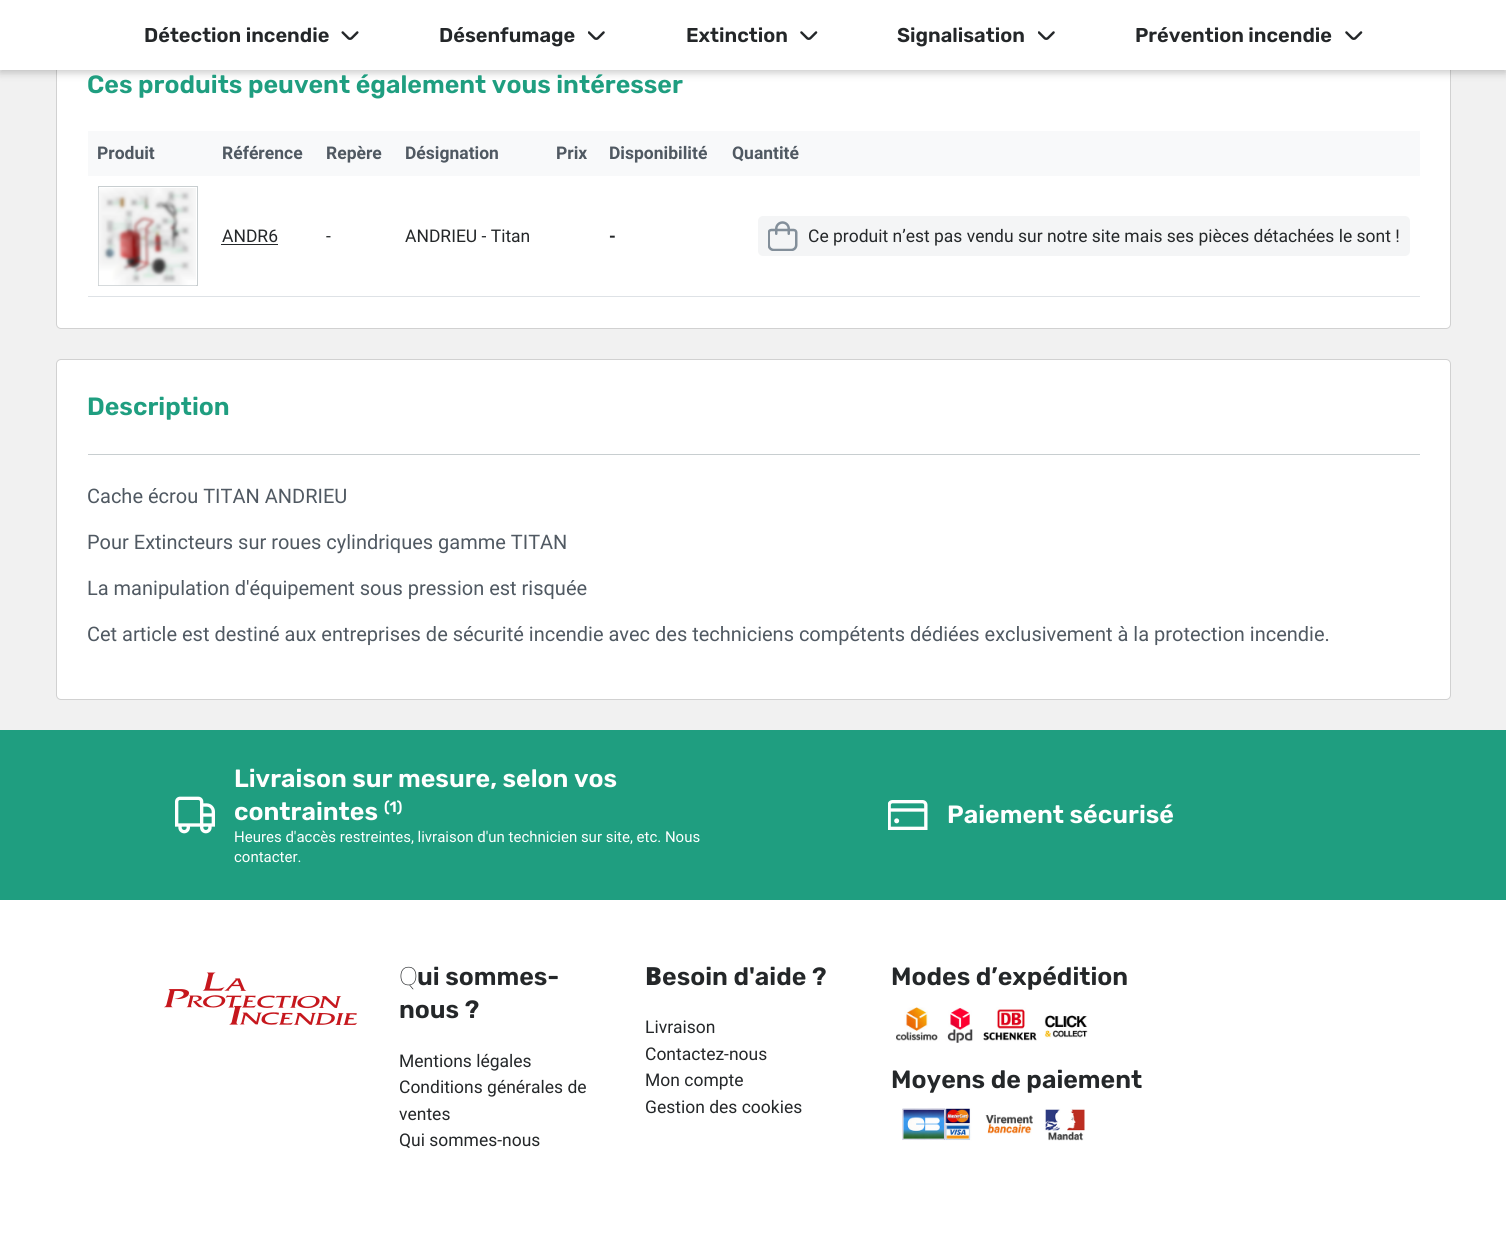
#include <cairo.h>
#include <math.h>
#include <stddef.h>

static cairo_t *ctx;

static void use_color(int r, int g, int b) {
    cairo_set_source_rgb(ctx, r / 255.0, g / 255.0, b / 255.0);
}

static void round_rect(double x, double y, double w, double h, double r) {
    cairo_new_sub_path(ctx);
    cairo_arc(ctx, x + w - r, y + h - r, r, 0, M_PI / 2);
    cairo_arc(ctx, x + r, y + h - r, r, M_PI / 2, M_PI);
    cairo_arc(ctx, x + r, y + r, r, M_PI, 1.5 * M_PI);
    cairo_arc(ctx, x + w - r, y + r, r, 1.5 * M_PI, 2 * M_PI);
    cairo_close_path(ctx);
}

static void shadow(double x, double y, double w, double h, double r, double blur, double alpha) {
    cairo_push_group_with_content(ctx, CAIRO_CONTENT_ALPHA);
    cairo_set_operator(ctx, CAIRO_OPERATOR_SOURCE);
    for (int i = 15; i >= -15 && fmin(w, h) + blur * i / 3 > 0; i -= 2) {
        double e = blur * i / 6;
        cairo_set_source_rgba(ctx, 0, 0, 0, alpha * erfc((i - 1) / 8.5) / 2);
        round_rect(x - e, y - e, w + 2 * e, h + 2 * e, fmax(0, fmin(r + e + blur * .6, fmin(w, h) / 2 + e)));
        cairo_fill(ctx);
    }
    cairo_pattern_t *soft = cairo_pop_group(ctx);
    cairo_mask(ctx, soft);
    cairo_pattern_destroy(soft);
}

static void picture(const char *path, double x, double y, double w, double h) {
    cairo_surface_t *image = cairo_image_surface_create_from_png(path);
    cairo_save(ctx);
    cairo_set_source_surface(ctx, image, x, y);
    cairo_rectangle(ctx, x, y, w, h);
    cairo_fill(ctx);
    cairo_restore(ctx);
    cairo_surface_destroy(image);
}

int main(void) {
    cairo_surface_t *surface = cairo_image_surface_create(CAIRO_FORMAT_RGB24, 1506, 1245);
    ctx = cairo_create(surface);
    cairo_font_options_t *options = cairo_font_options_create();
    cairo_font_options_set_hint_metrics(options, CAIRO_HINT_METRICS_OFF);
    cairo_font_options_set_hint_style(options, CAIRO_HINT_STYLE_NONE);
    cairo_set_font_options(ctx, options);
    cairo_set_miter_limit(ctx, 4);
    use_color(241, 241, 241);
    cairo_paint(ctx);
    use_color(255, 255, 255);
    round_rect(56, 38, 1395, 291, 5);
    cairo_fill(ctx);
    round_rect(56.5, 38.5, 1394, 290, 4.5);
    cairo_set_source_rgba(ctx, 0, 0, 0, 0.18);
    cairo_set_line_width(ctx, 1);
    cairo_stroke(ctx);
    use_color(0, 0, 0);
    shadow(0, 3, 1506, 70, 0, 4, 0.2);
    use_color(255, 255, 255);
    cairo_rectangle(ctx, 0, 0, 1506, 70);
    cairo_fill(ctx);
    cairo_select_font_face(ctx, "Rubik SemiBold", CAIRO_FONT_SLANT_NORMAL, CAIRO_FONT_WEIGHT_NORMAL);
    cairo_set_font_size(ctx, 20);
    use_color(36, 39, 41);
    cairo_move_to(ctx, 144, 42);
    cairo_show_text(ctx, "Détection incendie");
    picture("img1.png", 341, 31, 18, 9);
    cairo_move_to(ctx, 439, 42);
    cairo_show_text(ctx, "Désenfumage");
    picture("img2.png", 588, 31, 17, 9);
    cairo_move_to(ctx, 686, 42);
    cairo_show_text(ctx, "Extinction");
    picture("img3.png", 800, 31, 18, 9);
    cairo_move_to(ctx, 897, 42);
    cairo_show_text(ctx, "Signalisation");
    picture("img2.png", 1038, 31, 17, 9);
    cairo_move_to(ctx, 1135, 42);
    cairo_show_text(ctx, "Prévention incendie");
    picture("img3.png", 1345, 31, 18, 9);
    cairo_set_font_size(ctx, 25);
    use_color(31, 158, 128);
    cairo_move_to(ctx, 87, 93);
    cairo_show_text(ctx, "Ces produits peuvent également vous intéresser");
    use_color(248, 249, 250);
    cairo_rectangle(ctx, 88, 131, 1332, 45);
    cairo_fill(ctx);
    cairo_select_font_face(ctx, "Roboto", CAIRO_FONT_SLANT_NORMAL, CAIRO_FONT_WEIGHT_BOLD);
    cairo_set_font_size(ctx, 17.5);
    use_color(80, 89, 98);
    cairo_move_to(ctx, 97, 159);
    cairo_show_text(ctx, "Produit");
    cairo_move_to(ctx, 222, 159);
    cairo_show_text(ctx, "Référence");
    cairo_move_to(ctx, 326, 159);
    cairo_show_text(ctx, "Repère");
    cairo_move_to(ctx, 405, 159);
    cairo_show_text(ctx, "Désignation");
    cairo_move_to(ctx, 556, 159);
    cairo_show_text(ctx, "Prix");
    cairo_move_to(ctx, 609, 159);
    cairo_show_text(ctx, "Disponibilité");
    cairo_move_to(ctx, 732, 159);
    cairo_show_text(ctx, "Quantité");
    cairo_rectangle(ctx, 98.5, 186.5, 99, 99);
    use_color(200, 206, 208);
    cairo_stroke(ctx);
    picture("img4.png", 98, 188, 98, 98);
    cairo_select_font_face(ctx, "Roboto", CAIRO_FONT_SLANT_NORMAL, CAIRO_FONT_WEIGHT_NORMAL);
    use_color(36, 39, 41);
    cairo_move_to(ctx, 222, 242);
    cairo_show_text(ctx, "ANDR6");
    cairo_rectangle(ctx, 221, 244, 57, 1);
    cairo_fill(ctx);
    cairo_move_to(ctx, 326, 242);
    cairo_show_text(ctx, "-");
    cairo_move_to(ctx, 405, 242);
    cairo_show_text(ctx, "ANDRIEU - Titan");
    cairo_select_font_face(ctx, "Roboto", CAIRO_FONT_SLANT_NORMAL, CAIRO_FONT_WEIGHT_BOLD);
    cairo_move_to(ctx, 609, 242);
    cairo_show_text(ctx, "-");
    use_color(222, 226, 230);
    cairo_rectangle(ctx, 88, 296, 1332, 1);
    cairo_fill(ctx);
    use_color(244, 245, 246);
    round_rect(758, 216, 652, 40, 5);
    cairo_fill(ctx);
    picture("img5.png", 768, 221, 30, 30);
    cairo_select_font_face(ctx, "Roboto", CAIRO_FONT_SLANT_NORMAL, CAIRO_FONT_WEIGHT_NORMAL);
    use_color(36, 39, 41);
    cairo_move_to(ctx, 808, 242);
    cairo_show_text(ctx, "Ce produit n’est pas vendu sur notre site mais ses pièces détachées le sont !");
    use_color(255, 255, 255);
    round_rect(56, 359, 1395, 341, 5);
    cairo_fill(ctx);
    round_rect(56.5, 359.5, 1394, 340, 4.5);
    cairo_set_source_rgba(ctx, 0, 0, 0, 0.18);
    cairo_stroke(ctx);
    use_color(200, 206, 208);
    cairo_rectangle(ctx, 88, 454, 1332, 1);
    cairo_fill(ctx);
    cairo_select_font_face(ctx, "Rubik SemiBold", CAIRO_FONT_SLANT_NORMAL, CAIRO_FONT_WEIGHT_NORMAL);
    cairo_set_font_size(ctx, 25);
    use_color(31, 158, 128);
    cairo_move_to(ctx, 87, 415);
    cairo_show_text(ctx, "Description");
    cairo_select_font_face(ctx, "Roboto", CAIRO_FONT_SLANT_NORMAL, CAIRO_FONT_WEIGHT_NORMAL);
    cairo_set_font_size(ctx, 20);
    use_color(80, 89, 98);
    cairo_move_to(ctx, 87, 503);
    cairo_show_text(ctx, "Cache écrou TITAN ANDRIEU");
    cairo_move_to(ctx, 87, 549);
    cairo_show_text(ctx, "Pour Extincteurs sur roues cylindriques gamme TITAN");
    cairo_move_to(ctx, 87, 595);
    cairo_show_text(ctx, "La manipulation d'équipement sous pression est risquée");
    cairo_move_to(ctx, 87, 641);
    cairo_show_text(ctx, "Cet article est destiné aux entreprises de sécurité incendie avec des techniciens compétents dédiées exclusivement à la protection incendie.");
    use_color(31, 158, 128);
    cairo_rectangle(ctx, 0, 730, 1506, 170);
    cairo_fill(ctx);
    picture("img6.png", 175, 796, 40, 38);
    cairo_select_font_face(ctx, "Rubik SemiBold", CAIRO_FONT_SLANT_NORMAL, CAIRO_FONT_WEIGHT_NORMAL);
    cairo_set_font_size(ctx, 25);
    use_color(255, 255, 255);
    cairo_move_to(ctx, 234, 787);
    cairo_show_text(ctx, "Livraison sur mesure, selon vos");
    cairo_move_to(ctx, 234, 820);
    cairo_show_text(ctx, "contraintes");
    cairo_set_font_size(ctx, 15);
    cairo_move_to(ctx, 384, 812);
    cairo_show_text(ctx, "(1)");
    cairo_select_font_face(ctx, "Roboto", CAIRO_FONT_SLANT_NORMAL, CAIRO_FONT_WEIGHT_NORMAL);
    cairo_move_to(ctx, 234, 842);
    cairo_show_text(ctx, "Heures d'accès restreintes, livraison d'un technicien sur site, etc. Nous");
    cairo_move_to(ctx, 234, 862);
    cairo_show_text(ctx, "contacter.");
    picture("img7.png", 888, 800, 40, 30);
    cairo_select_font_face(ctx, "Rubik SemiBold", CAIRO_FONT_SLANT_NORMAL, CAIRO_FONT_WEIGHT_NORMAL);
    cairo_set_font_size(ctx, 25);
    cairo_move_to(ctx, 947, 823);
    cairo_show_text(ctx, "Paiement sécurisé");
    cairo_rectangle(ctx, 0, 900, 1506, 345);
    cairo_fill(ctx);
    picture("img8.png", 164, 972, 194, 53);
    cairo_select_font_face(ctx, "Noto Sans Thin", CAIRO_FONT_SLANT_NORMAL, CAIRO_FONT_WEIGHT_NORMAL);
    use_color(36, 39, 41);
    cairo_move_to(ctx, 399, 985);
    cairo_show_text(ctx, "Q");
    cairo_select_font_face(ctx, "Rubik SemiBold", CAIRO_FONT_SLANT_NORMAL, CAIRO_FONT_WEIGHT_NORMAL);
    cairo_move_to(ctx, 417, 985);
    cairo_show_text(ctx, "ui sommes-");
    cairo_move_to(ctx, 399, 1018);
    cairo_show_text(ctx, "nous ?");
    cairo_select_font_face(ctx, "Roboto", CAIRO_FONT_SLANT_NORMAL, CAIRO_FONT_WEIGHT_NORMAL);
    cairo_set_font_size(ctx, 17.5);
    cairo_move_to(ctx, 399, 1067);
    cairo_show_text(ctx, "Mentions légales");
    cairo_move_to(ctx, 399, 1093);
    cairo_show_text(ctx, "Conditions générales de");
    cairo_move_to(ctx, 399, 1120);
    cairo_show_text(ctx, "ventes");
    cairo_move_to(ctx, 399, 1146);
    cairo_show_text(ctx, "Qui sommes-nous");
    cairo_select_font_face(ctx, "Noto Sans Black", CAIRO_FONT_SLANT_NORMAL, CAIRO_FONT_WEIGHT_NORMAL);
    cairo_set_font_size(ctx, 25);
    cairo_move_to(ctx, 645, 985);
    cairo_show_text(ctx, "B");
    cairo_select_font_face(ctx, "Rubik SemiBold", CAIRO_FONT_SLANT_NORMAL, CAIRO_FONT_WEIGHT_NORMAL);
    cairo_move_to(ctx, 662, 985);
    cairo_show_text(ctx, "esoin d'aide ?");
    cairo_select_font_face(ctx, "Roboto", CAIRO_FONT_SLANT_NORMAL, CAIRO_FONT_WEIGHT_NORMAL);
    cairo_set_font_size(ctx, 17.5);
    cairo_move_to(ctx, 645, 1033);
    cairo_show_text(ctx, "Livraison");
    cairo_move_to(ctx, 645, 1060);
    cairo_show_text(ctx, "Contactez-nous");
    cairo_move_to(ctx, 645, 1086);
    cairo_show_text(ctx, "Mon compte");
    cairo_move_to(ctx, 645, 1113);
    cairo_show_text(ctx, "Gestion des cookies");
    cairo_select_font_face(ctx, "Rubik SemiBold", CAIRO_FONT_SLANT_NORMAL, CAIRO_FONT_WEIGHT_NORMAL);
    cairo_set_font_size(ctx, 25);
    cairo_move_to(ctx, 891, 985);
    cairo_show_text(ctx, "Modes d’expédition");
    picture("img9.png", 896, 1007, 192, 36);
    cairo_move_to(ctx, 891, 1088);
    cairo_show_text(ctx, "Moyens de paiement");
    picture("img10.png", 902, 1108, 183, 33);
    cairo_surface_write_to_png(surface, "result.png");
    cairo_font_options_destroy(options);
    cairo_destroy(ctx);
    cairo_surface_destroy(surface);
    return 0;
}
